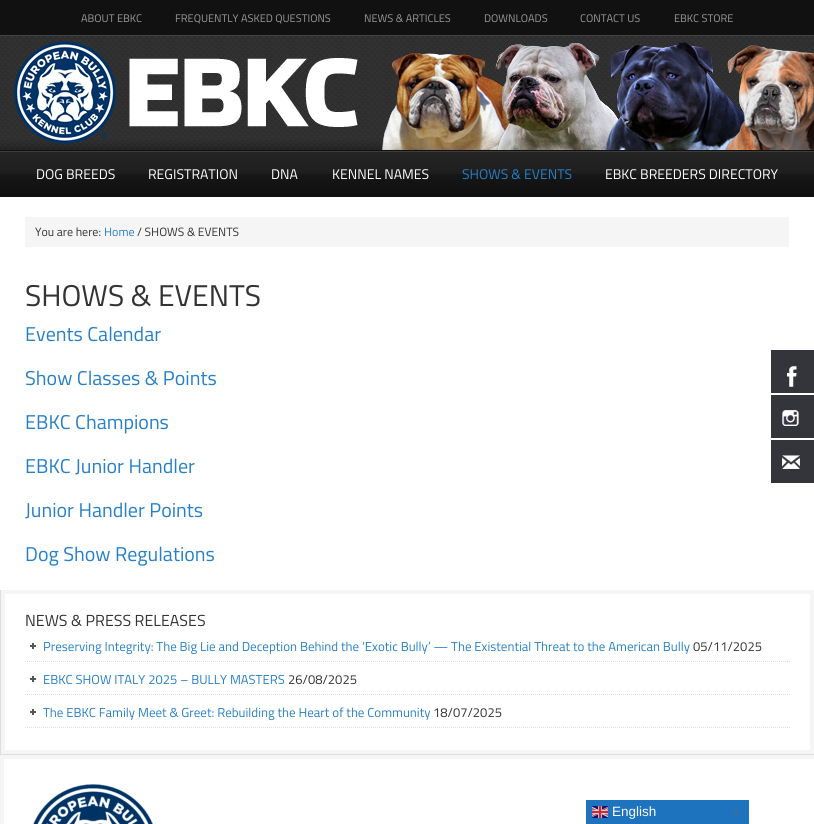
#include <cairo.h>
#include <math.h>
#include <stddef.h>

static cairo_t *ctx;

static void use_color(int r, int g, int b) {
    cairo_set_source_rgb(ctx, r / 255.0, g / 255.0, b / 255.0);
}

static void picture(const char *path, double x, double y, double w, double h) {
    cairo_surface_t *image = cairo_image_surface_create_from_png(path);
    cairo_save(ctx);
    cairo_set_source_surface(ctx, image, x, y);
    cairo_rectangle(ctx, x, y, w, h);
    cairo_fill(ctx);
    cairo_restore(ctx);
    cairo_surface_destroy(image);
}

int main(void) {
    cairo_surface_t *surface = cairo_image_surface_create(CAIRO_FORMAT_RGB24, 814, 824);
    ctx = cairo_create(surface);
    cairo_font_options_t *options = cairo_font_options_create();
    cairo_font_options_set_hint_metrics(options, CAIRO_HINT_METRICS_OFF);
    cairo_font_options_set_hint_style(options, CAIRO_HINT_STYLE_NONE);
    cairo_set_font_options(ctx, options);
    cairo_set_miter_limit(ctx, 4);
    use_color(255, 255, 255);
    cairo_paint(ctx);
    use_color(17, 17, 17);
    cairo_rectangle(ctx, 0, 0, 814, 35);
    cairo_fill(ctx);
    cairo_select_font_face(ctx, "Titillium Web", CAIRO_FONT_SLANT_NORMAL, CAIRO_FONT_WEIGHT_NORMAL);
    cairo_set_font_size(ctx, 11);
    use_color(153, 153, 153);
    cairo_move_to(ctx, 81, 22);
    cairo_show_text(ctx, "ABOUT EBKC");
    cairo_move_to(ctx, 175, 22);
    cairo_show_text(ctx, "FREQUENTLY ASKED QUESTIONS");
    cairo_move_to(ctx, 364, 22);
    cairo_show_text(ctx, "NEWS & ARTICLES");
    cairo_move_to(ctx, 484, 22);
    cairo_show_text(ctx, "DOWNLOADS");
    cairo_move_to(ctx, 580, 22);
    cairo_show_text(ctx, "CONTACT US");
    cairo_move_to(ctx, 674, 22);
    cairo_show_text(ctx, "EBKC STORE");
    picture("img1.png", 0, 35, 814, 115);
    picture("img2.png", 14, 41, 800, 109);
    picture("img3.png", 0, 151, 814, 45);
    use_color(17, 17, 17);
    cairo_rectangle(ctx, 0, 150, 814, 1);
    cairo_fill(ctx);
    cairo_rectangle(ctx, 0, 196, 814, 1);
    cairo_fill(ctx);
    cairo_set_font_size(ctx, 14);
    use_color(255, 255, 255);
    cairo_move_to(ctx, 36, 179);
    cairo_show_text(ctx, "DOG BREEDS");
    cairo_move_to(ctx, 148, 179);
    cairo_show_text(ctx, "REGISTRATION");
    cairo_move_to(ctx, 271, 179);
    cairo_show_text(ctx, "DNA");
    cairo_move_to(ctx, 332, 179);
    cairo_show_text(ctx, "KENNEL NAMES");
    use_color(39, 128, 199);
    cairo_move_to(ctx, 462, 179);
    cairo_show_text(ctx, "SHOWS & EVENTS");
    use_color(255, 255, 255);
    cairo_move_to(ctx, 605, 179);
    cairo_show_text(ctx, "EBKC BREEDERS DIRECTORY");
    use_color(245, 245, 245);
    cairo_rectangle(ctx, 25, 217, 764, 30);
    cairo_fill(ctx);
    cairo_set_font_size(ctx, 12);
    use_color(51, 51, 51);
    cairo_move_to(ctx, 35, 236);
    cairo_show_text(ctx, "You are here:");
    use_color(39, 128, 199);
    cairo_move_to(ctx, 104, 236);
    cairo_show_text(ctx, "Home");
    use_color(51, 51, 51);
    cairo_move_to(ctx, 137, 236);
    cairo_show_text(ctx, "/ SHOWS & EVENTS");
    cairo_set_font_size(ctx, 30);
    cairo_move_to(ctx, 25, 306);
    cairo_show_text(ctx, "SHOWS & EVENTS");
    cairo_set_font_size(ctx, 20);
    use_color(39, 128, 199);
    cairo_move_to(ctx, 25, 341);
    cairo_show_text(ctx, "Events Calendar");
    cairo_move_to(ctx, 25, 385);
    cairo_show_text(ctx, "Show Classes & Points");
    cairo_move_to(ctx, 25, 429);
    cairo_show_text(ctx, "EBKC Champions");
    cairo_move_to(ctx, 25, 473);
    cairo_show_text(ctx, "EBKC Junior Handler");
    cairo_move_to(ctx, 25, 517);
    cairo_show_text(ctx, "Junior Handler Points");
    cairo_move_to(ctx, 25, 561);
    cairo_show_text(ctx, "Dog Show Regulations");
    use_color(221, 221, 221);
    cairo_rectangle(ctx, 0, 754, 814, 1);
    cairo_fill(ctx);
    cairo_rectangle(ctx, 0, 590, 1, 165);
    cairo_fill(ctx);
    cairo_rectangle(ctx, 3, 592, 809, 160);
    use_color(245, 245, 245);
    cairo_set_line_width(ctx, 4);
    cairo_stroke(ctx);
    cairo_set_font_size(ctx, 16);
    use_color(51, 51, 51);
    cairo_move_to(ctx, 25, 626);
    cairo_show_text(ctx, "NEWS & PRESS RELEASES");
    picture("img4.png", 30, 643, 6, 6);
    cairo_new_path(ctx);
    cairo_move_to(ctx, 25, 661.5);
    cairo_line_to(ctx, 790, 661.5);
    use_color(221, 221, 221);
    cairo_set_line_width(ctx, 1);
    cairo_set_dash(ctx, (double[]){1, 1}, 2, 0);
    cairo_stroke(ctx);
    cairo_set_font_size(ctx, 13);
    use_color(39, 128, 199);
    cairo_move_to(ctx, 43, 651);
    cairo_show_text(ctx, "Preserving Integrity: The Big Lie and Deception Behind the ‘Exotic Bully’ — The Existential Threat to the American Bully");
    use_color(51, 51, 51);
    cairo_move_to(ctx, 693, 651);
    cairo_show_text(ctx, "05/11/2025");
    picture("img4.png", 30, 676, 6, 6);
    cairo_new_path(ctx);
    cairo_move_to(ctx, 25, 694.5);
    cairo_line_to(ctx, 790, 694.5);
    use_color(221, 221, 221);
    cairo_stroke(ctx);
    use_color(39, 128, 199);
    cairo_move_to(ctx, 43, 684);
    cairo_show_text(ctx, "EBKC SHOW ITALY 2025 – BULLY MASTERS");
    use_color(51, 51, 51);
    cairo_move_to(ctx, 288, 684);
    cairo_show_text(ctx, "26/08/2025");
    picture("img4.png", 30, 709, 6, 6);
    cairo_new_path(ctx);
    cairo_move_to(ctx, 25, 727.5);
    cairo_line_to(ctx, 790, 727.5);
    use_color(221, 221, 221);
    cairo_stroke(ctx);
    use_color(39, 128, 199);
    cairo_move_to(ctx, 43, 717);
    cairo_show_text(ctx, "The EBKC Family Meet & Greet: Rebuilding the Heart of the Community");
    use_color(51, 51, 51);
    cairo_move_to(ctx, 433, 717);
    cairo_show_text(ctx, "18/07/2025");
    use_color(51, 53, 59);
    cairo_rectangle(ctx, 771, 350, 43, 43);
    cairo_fill(ctx);
    picture("img5.png", 787, 366, 10, 21);
    cairo_rectangle(ctx, 771, 395, 43, 43);
    cairo_fill(ctx);
    picture("img6.png", 782, 410, 17, 16);
    cairo_rectangle(ctx, 771, 440, 43, 43);
    cairo_fill(ctx);
    picture("img7.png", 782, 455, 18, 14);
    cairo_rectangle(ctx, 2, 757, 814, 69);
    use_color(245, 245, 245);
    cairo_set_line_width(ctx, 4);
    cairo_set_dash(ctx, NULL, 0, 0);
    cairo_stroke(ctx);
    picture("img8.png", 33, 784, 120, 40);
    use_color(30, 115, 190);
    cairo_rectangle(ctx, 586, 800, 163, 24);
    cairo_fill(ctx);
    picture("img9.png", 592, 806, 16, 12);
    cairo_select_font_face(ctx, "Liberation Sans", CAIRO_FONT_SLANT_NORMAL, CAIRO_FONT_WEIGHT_NORMAL);
    cairo_set_font_size(ctx, 13.5);
    use_color(255, 255, 255);
    cairo_move_to(ctx, 612, 816);
    cairo_show_text(ctx, "English");
    picture("img10.png", 733, 810, 7, 5);
    cairo_surface_write_to_png(surface, "result.png");
    cairo_font_options_destroy(options);
    cairo_destroy(ctx);
    cairo_surface_destroy(surface);
    return 0;
}
